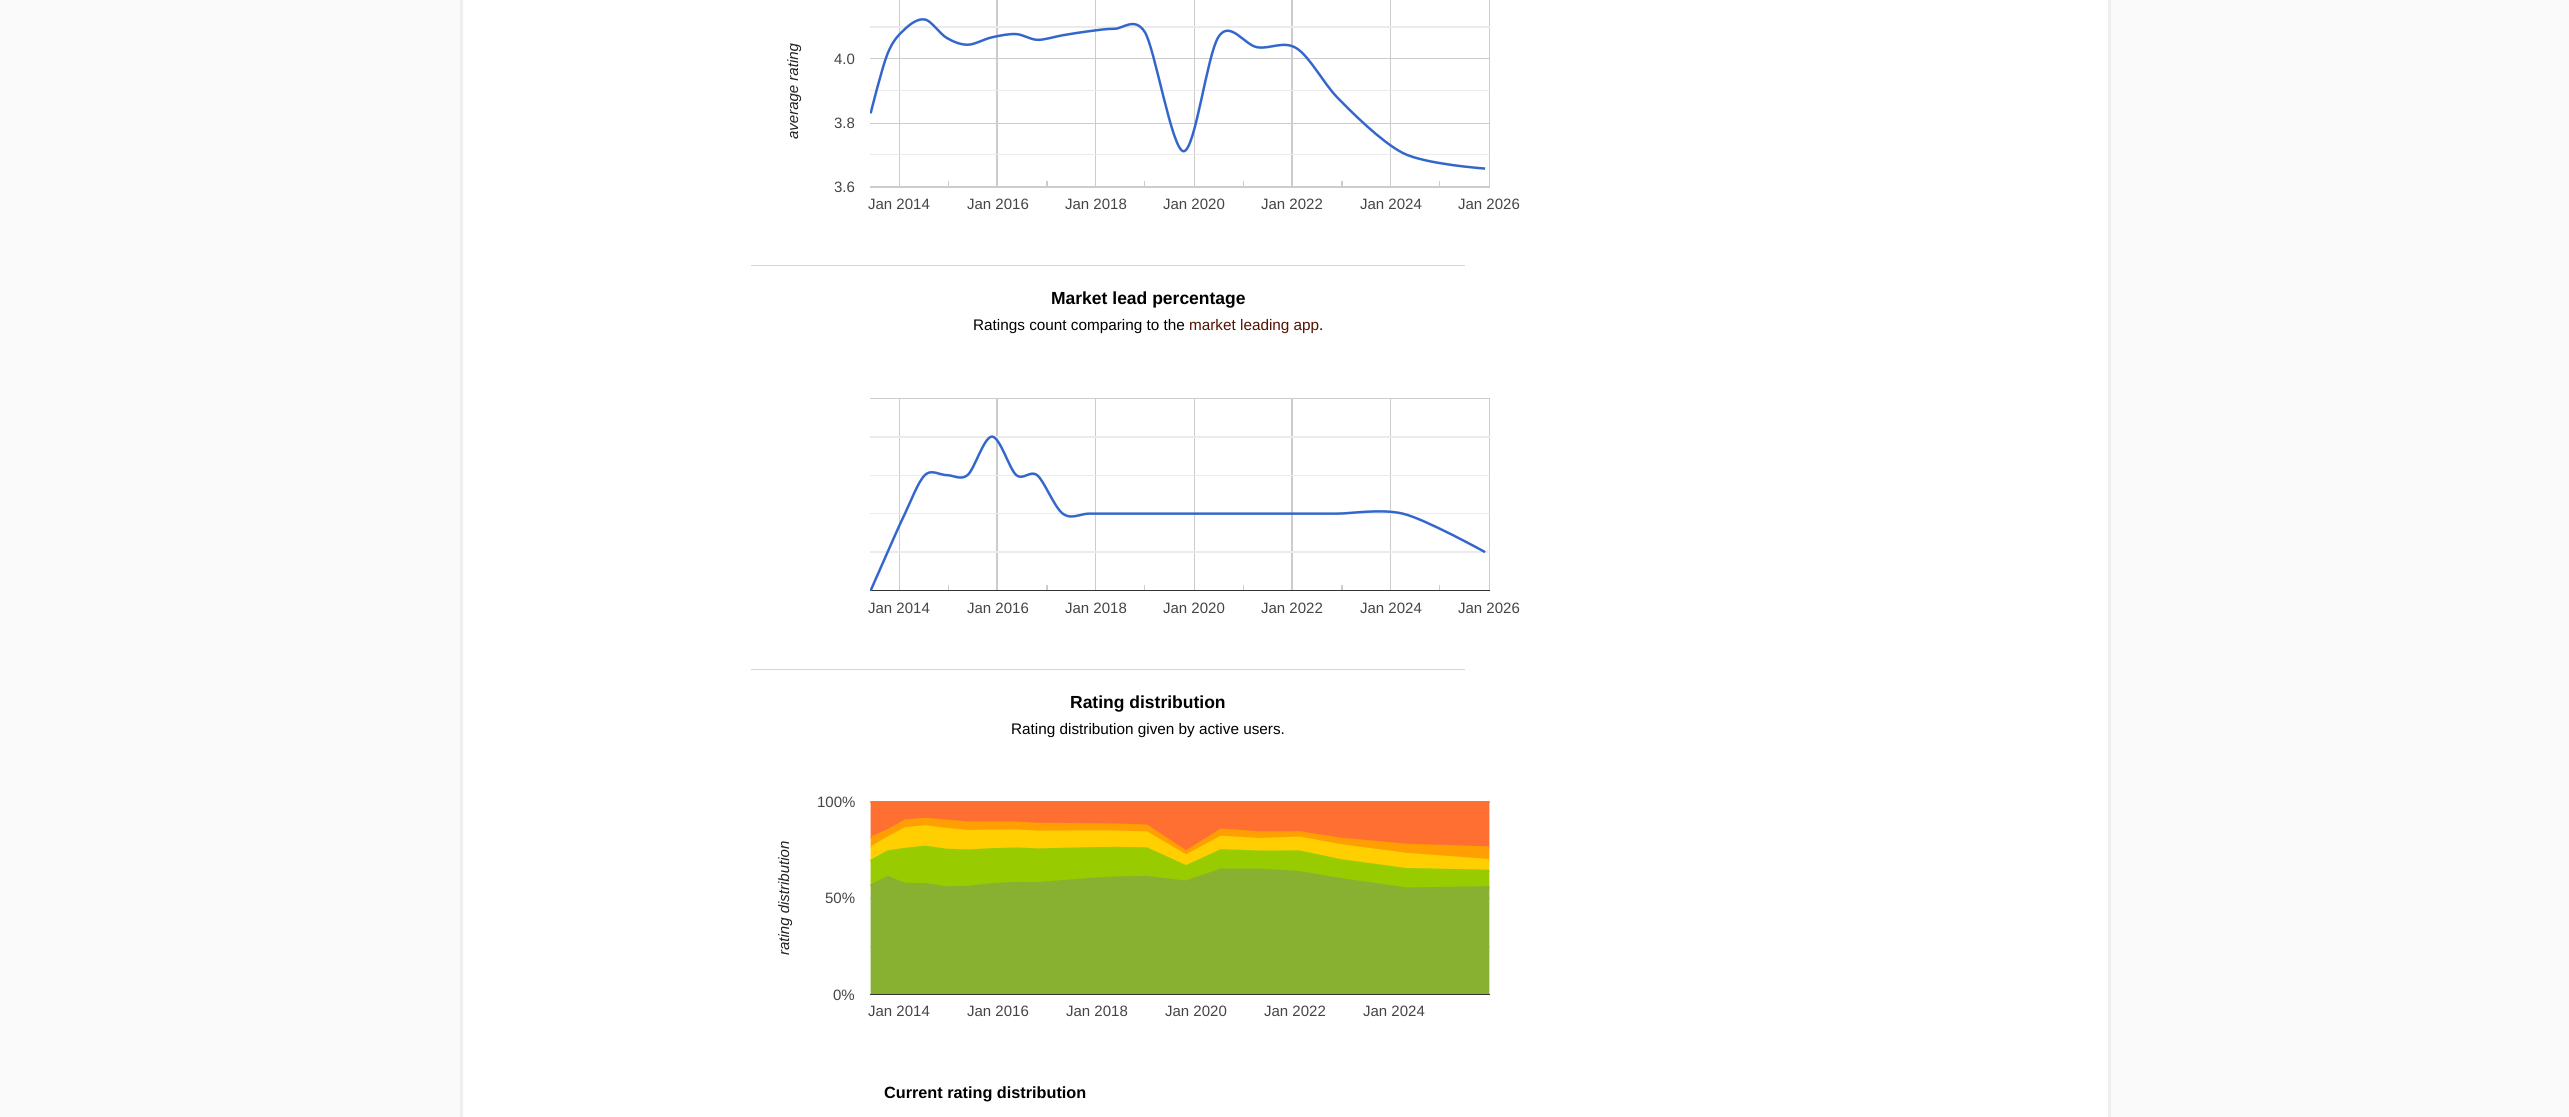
#include <cairo.h>
#include <math.h>
#include <stddef.h>

static cairo_t *ctx;

static void use_color(int r, int g, int b) {
    cairo_set_source_rgb(ctx, r / 255.0, g / 255.0, b / 255.0);
}

static void picture(const char *path, double x, double y, double w, double h) {
    cairo_surface_t *image = cairo_image_surface_create_from_png(path);
    cairo_save(ctx);
    cairo_set_source_surface(ctx, image, x, y);
    cairo_rectangle(ctx, x, y, w, h);
    cairo_fill(ctx);
    cairo_restore(ctx);
    cairo_surface_destroy(image);
}

int main(void) {
    cairo_surface_t *surface = cairo_image_surface_create(CAIRO_FORMAT_RGB24, 2569, 1117);
    ctx = cairo_create(surface);
    cairo_font_options_t *options = cairo_font_options_create();
    cairo_font_options_set_hint_metrics(options, CAIRO_HINT_METRICS_OFF);
    cairo_font_options_set_hint_style(options, CAIRO_HINT_STYLE_NONE);
    cairo_set_font_options(ctx, options);
    cairo_set_miter_limit(ctx, 4);
    use_color(250, 250, 250);
    cairo_paint(ctx);
    use_color(238, 238, 238);
    cairo_rectangle(ctx, 2108, 0, 3, 1117);
    cairo_fill(ctx);
    cairo_rectangle(ctx, 460, 0, 3, 1117);
    cairo_fill(ctx);
    use_color(255, 255, 255);
    cairo_rectangle(ctx, 463, 0, 1645, 1117);
    cairo_fill(ctx);
    cairo_select_font_face(ctx, "Liberation Sans", CAIRO_FONT_SLANT_ITALIC, CAIRO_FONT_WEIGHT_NORMAL);
    cairo_set_font_size(ctx, 15);
    use_color(34, 34, 34);
    cairo_save(ctx);
    cairo_translate(ctx, 798, 139);
    cairo_rotate(ctx, -90 * M_PI / 180);
    cairo_move_to(ctx, 0, 0);
    cairo_show_text(ctx, "average rating");
    cairo_restore(ctx);
    cairo_select_font_face(ctx, "Liberation Sans", CAIRO_FONT_SLANT_NORMAL, CAIRO_FONT_WEIGHT_NORMAL);
    use_color(68, 68, 68);
    cairo_move_to(ctx, 834, 64);
    cairo_show_text(ctx, "4.0");
    picture("img1.png", 870, 0, 620, 188);
    cairo_move_to(ctx, 834, 128);
    cairo_show_text(ctx, "3.8");
    cairo_move_to(ctx, 834, 192);
    cairo_show_text(ctx, "3.6");
    cairo_move_to(ctx, 868, 209);
    cairo_show_text(ctx, "Jan 2014");
    cairo_move_to(ctx, 967, 209);
    cairo_show_text(ctx, "Jan 2016");
    cairo_move_to(ctx, 1065, 209);
    cairo_show_text(ctx, "Jan 2018");
    cairo_move_to(ctx, 1163, 209);
    cairo_show_text(ctx, "Jan 2020");
    cairo_move_to(ctx, 1261, 209);
    cairo_show_text(ctx, "Jan 2022");
    cairo_move_to(ctx, 1360, 209);
    cairo_show_text(ctx, "Jan 2024");
    cairo_move_to(ctx, 1458, 209);
    cairo_show_text(ctx, "Jan 2026");
    use_color(213, 213, 213);
    cairo_rectangle(ctx, 751, 265, 714, 1);
    cairo_fill(ctx);
    cairo_select_font_face(ctx, "Liberation Sans", CAIRO_FONT_SLANT_NORMAL, CAIRO_FONT_WEIGHT_BOLD);
    cairo_set_font_size(ctx, 17.5);
    use_color(0, 0, 0);
    cairo_move_to(ctx, 1051, 304);
    cairo_show_text(ctx, "Market lead percentage");
    cairo_select_font_face(ctx, "Liberation Sans", CAIRO_FONT_SLANT_NORMAL, CAIRO_FONT_WEIGHT_NORMAL);
    cairo_set_font_size(ctx, 15.3);
    cairo_move_to(ctx, 973, 330);
    cairo_show_text(ctx, "Ratings count comparing to the");
    use_color(85, 17, 0);
    cairo_move_to(ctx, 1189, 330);
    cairo_show_text(ctx, "market leading app");
    use_color(0, 0, 0);
    cairo_move_to(ctx, 1319, 330);
    cairo_show_text(ctx, ".");
    picture("img2.png", 870, 398, 620, 193);
    cairo_set_font_size(ctx, 15);
    use_color(68, 68, 68);
    cairo_move_to(ctx, 868, 613);
    cairo_show_text(ctx, "Jan 2014");
    cairo_move_to(ctx, 967, 613);
    cairo_show_text(ctx, "Jan 2016");
    cairo_move_to(ctx, 1065, 613);
    cairo_show_text(ctx, "Jan 2018");
    cairo_move_to(ctx, 1163, 613);
    cairo_show_text(ctx, "Jan 2020");
    cairo_move_to(ctx, 1261, 613);
    cairo_show_text(ctx, "Jan 2022");
    cairo_move_to(ctx, 1360, 613);
    cairo_show_text(ctx, "Jan 2024");
    cairo_move_to(ctx, 1458, 613);
    cairo_show_text(ctx, "Jan 2026");
    use_color(213, 213, 213);
    cairo_rectangle(ctx, 751, 669, 714, 1);
    cairo_fill(ctx);
    cairo_select_font_face(ctx, "Liberation Sans", CAIRO_FONT_SLANT_NORMAL, CAIRO_FONT_WEIGHT_BOLD);
    cairo_set_font_size(ctx, 17.5);
    use_color(0, 0, 0);
    cairo_move_to(ctx, 1070, 708);
    cairo_show_text(ctx, "Rating distribution");
    cairo_select_font_face(ctx, "Liberation Sans", CAIRO_FONT_SLANT_NORMAL, CAIRO_FONT_WEIGHT_NORMAL);
    cairo_set_font_size(ctx, 15.3);
    cairo_move_to(ctx, 1011, 734);
    cairo_show_text(ctx, "Rating distribution given by active users.");
    cairo_select_font_face(ctx, "Liberation Sans", CAIRO_FONT_SLANT_ITALIC, CAIRO_FONT_WEIGHT_NORMAL);
    cairo_set_font_size(ctx, 15);
    use_color(34, 34, 34);
    cairo_save(ctx);
    cairo_translate(ctx, 789, 955);
    cairo_rotate(ctx, -90 * M_PI / 180);
    cairo_move_to(ctx, 0, 0);
    cairo_show_text(ctx, "rating distribution");
    cairo_restore(ctx);
    cairo_select_font_face(ctx, "Liberation Sans", CAIRO_FONT_SLANT_NORMAL, CAIRO_FONT_WEIGHT_NORMAL);
    use_color(68, 68, 68);
    cairo_move_to(ctx, 817, 807);
    cairo_show_text(ctx, "100%");
    picture("img3.png", 870, 801, 620, 194);
    cairo_move_to(ctx, 825, 903);
    cairo_show_text(ctx, "50%");
    cairo_move_to(ctx, 833, 1000);
    cairo_show_text(ctx, "0%");
    cairo_move_to(ctx, 868, 1016);
    cairo_show_text(ctx, "Jan 2014");
    cairo_move_to(ctx, 967, 1016);
    cairo_show_text(ctx, "Jan 2016");
    cairo_move_to(ctx, 1066, 1016);
    cairo_show_text(ctx, "Jan 2018");
    cairo_move_to(ctx, 1165, 1016);
    cairo_show_text(ctx, "Jan 2020");
    cairo_move_to(ctx, 1264, 1016);
    cairo_show_text(ctx, "Jan 2022");
    cairo_move_to(ctx, 1363, 1016);
    cairo_show_text(ctx, "Jan 2024");
    cairo_select_font_face(ctx, "Liberation Sans", CAIRO_FONT_SLANT_NORMAL, CAIRO_FONT_WEIGHT_BOLD);
    cairo_set_font_size(ctx, 16.25);
    use_color(0, 0, 0);
    cairo_move_to(ctx, 884, 1098);
    cairo_show_text(ctx, "Current rating distribution");
    cairo_surface_write_to_png(surface, "result.png");
    cairo_font_options_destroy(options);
    cairo_destroy(ctx);
    cairo_surface_destroy(surface);
    return 0;
}
